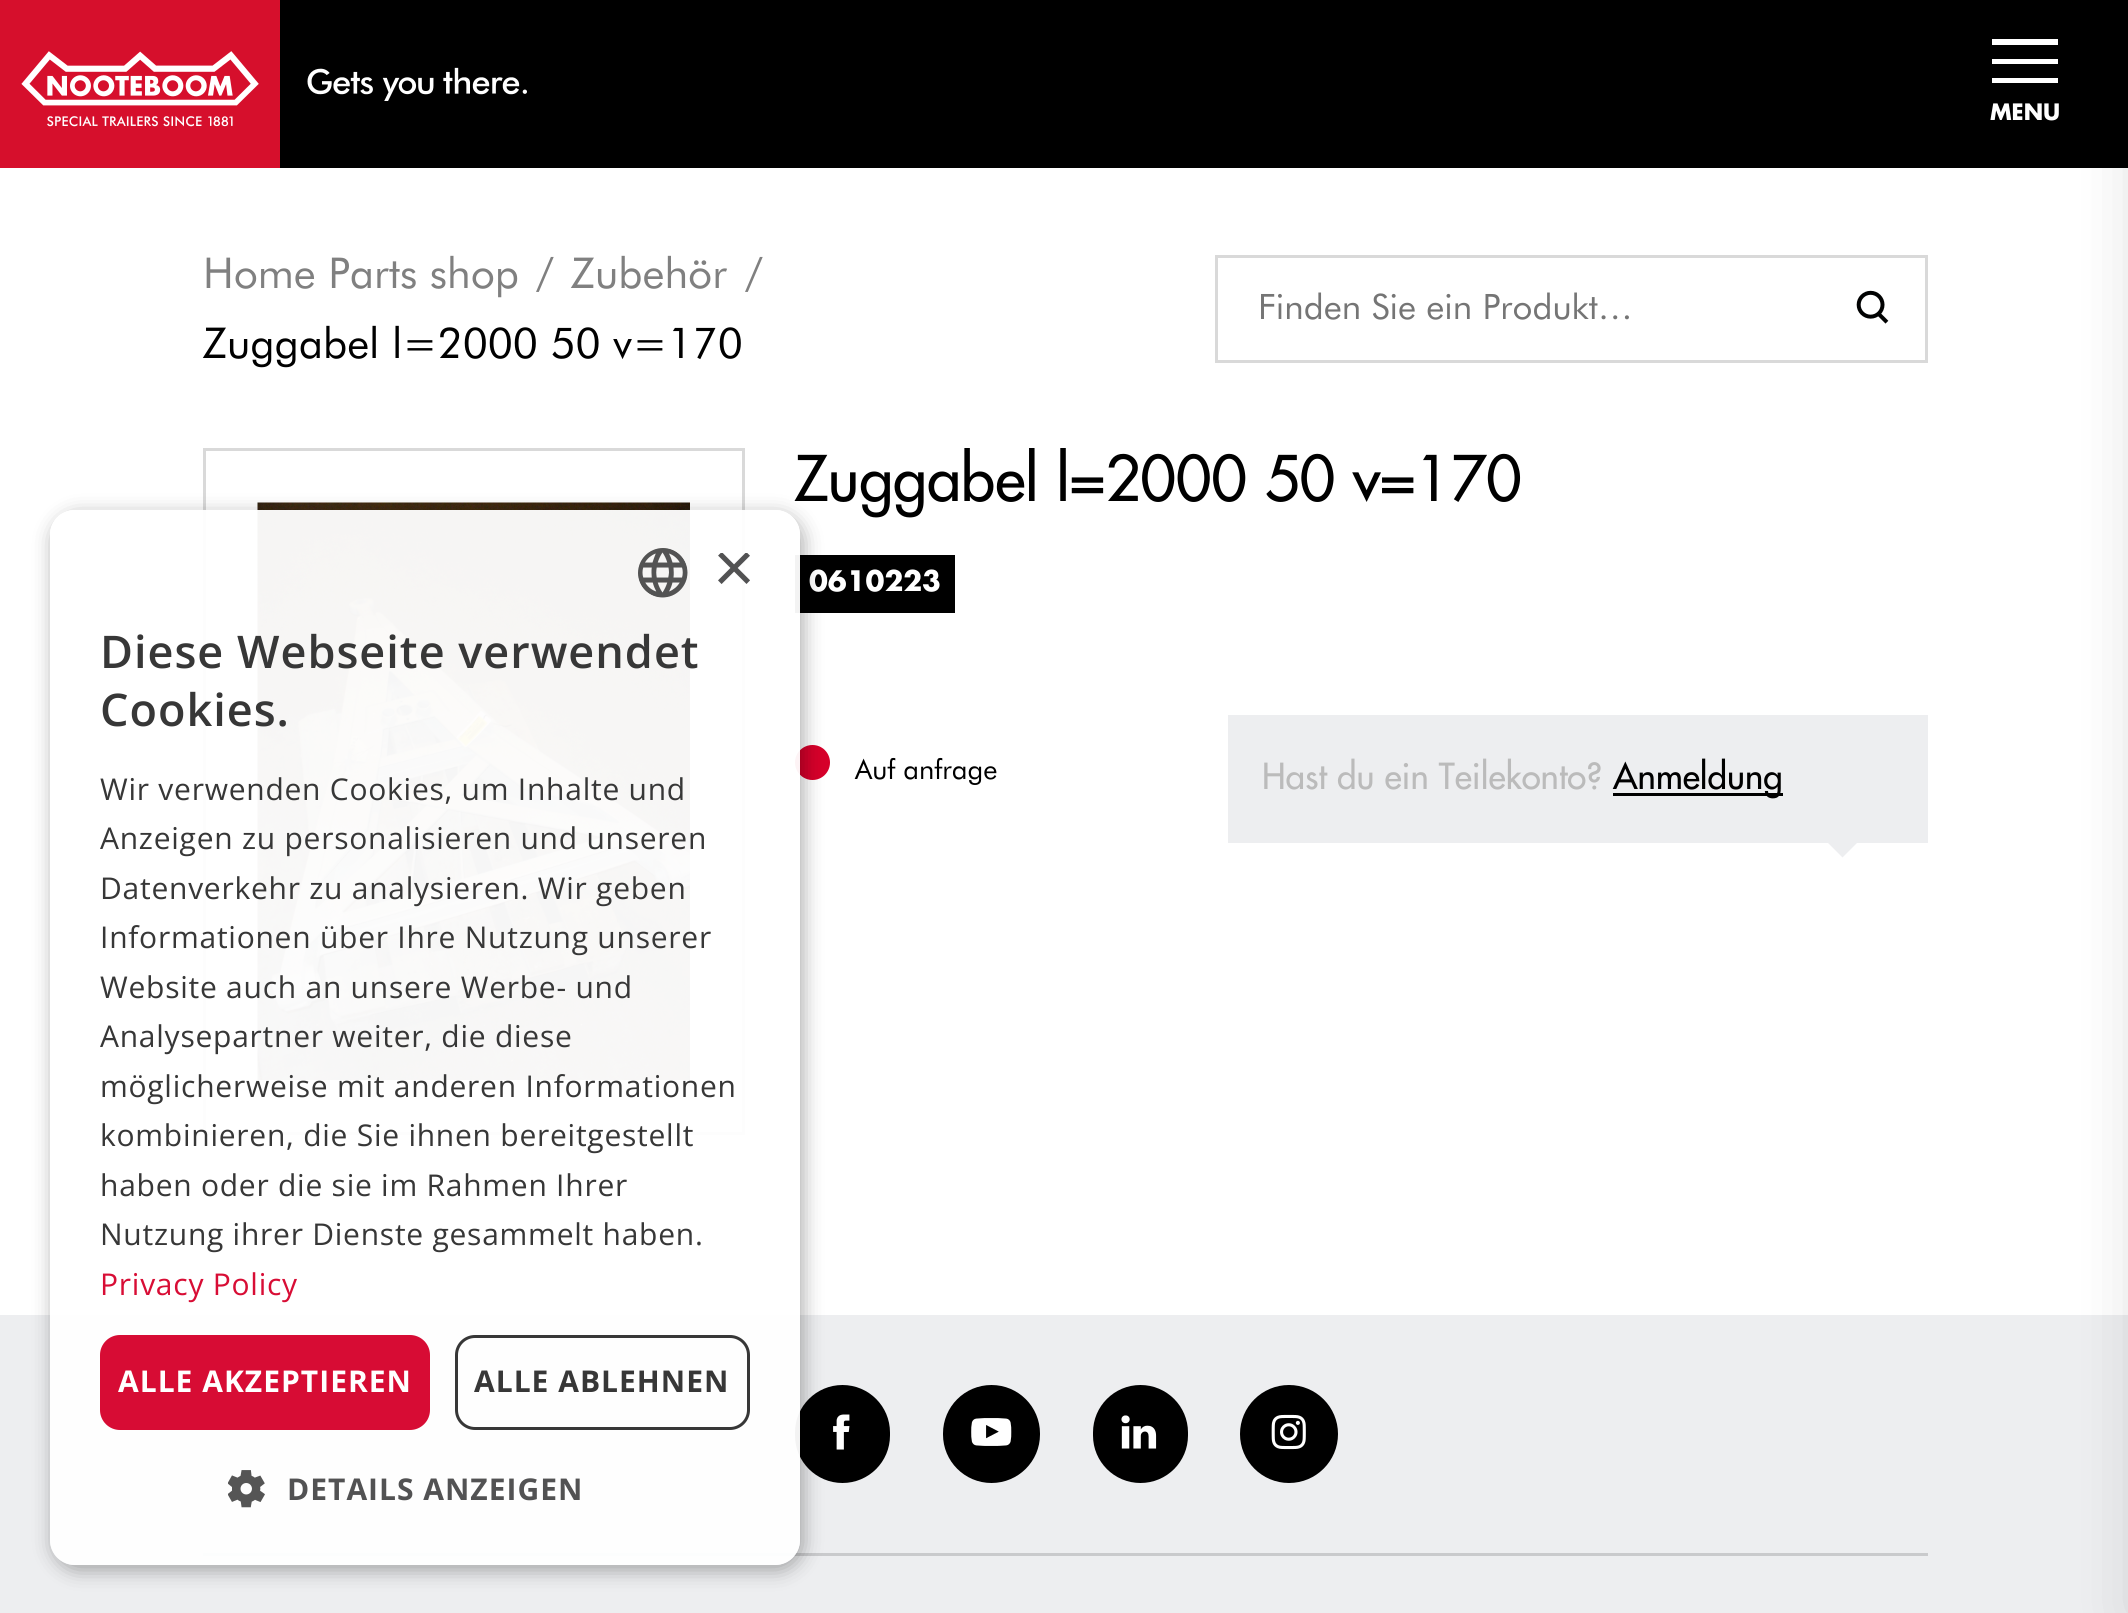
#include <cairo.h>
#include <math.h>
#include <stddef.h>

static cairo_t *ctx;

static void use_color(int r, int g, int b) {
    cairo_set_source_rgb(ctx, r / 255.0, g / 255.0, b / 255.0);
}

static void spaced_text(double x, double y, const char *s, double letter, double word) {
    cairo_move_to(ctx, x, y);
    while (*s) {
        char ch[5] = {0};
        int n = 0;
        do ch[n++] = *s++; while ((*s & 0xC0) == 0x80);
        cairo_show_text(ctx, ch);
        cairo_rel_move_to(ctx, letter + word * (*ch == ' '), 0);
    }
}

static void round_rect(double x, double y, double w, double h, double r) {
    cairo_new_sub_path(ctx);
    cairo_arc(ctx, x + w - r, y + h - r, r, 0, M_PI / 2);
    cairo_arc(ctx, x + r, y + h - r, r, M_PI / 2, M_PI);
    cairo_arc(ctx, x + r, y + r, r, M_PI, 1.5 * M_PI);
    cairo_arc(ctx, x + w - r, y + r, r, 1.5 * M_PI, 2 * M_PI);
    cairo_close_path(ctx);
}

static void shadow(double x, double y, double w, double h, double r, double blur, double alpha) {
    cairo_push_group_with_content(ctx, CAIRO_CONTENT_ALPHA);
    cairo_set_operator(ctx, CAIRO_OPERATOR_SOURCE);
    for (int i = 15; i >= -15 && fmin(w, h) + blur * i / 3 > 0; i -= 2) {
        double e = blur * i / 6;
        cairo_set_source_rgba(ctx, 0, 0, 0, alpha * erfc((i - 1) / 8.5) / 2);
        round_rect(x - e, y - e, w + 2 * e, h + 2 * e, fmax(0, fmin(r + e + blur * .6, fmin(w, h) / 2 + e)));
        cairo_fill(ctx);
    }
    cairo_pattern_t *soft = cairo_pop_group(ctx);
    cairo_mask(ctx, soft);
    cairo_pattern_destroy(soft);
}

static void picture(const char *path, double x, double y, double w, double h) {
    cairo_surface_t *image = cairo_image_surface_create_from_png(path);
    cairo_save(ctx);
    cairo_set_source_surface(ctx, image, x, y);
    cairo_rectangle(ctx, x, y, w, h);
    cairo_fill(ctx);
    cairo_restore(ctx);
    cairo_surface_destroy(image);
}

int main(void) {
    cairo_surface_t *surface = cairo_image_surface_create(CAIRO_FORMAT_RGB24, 2128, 1613);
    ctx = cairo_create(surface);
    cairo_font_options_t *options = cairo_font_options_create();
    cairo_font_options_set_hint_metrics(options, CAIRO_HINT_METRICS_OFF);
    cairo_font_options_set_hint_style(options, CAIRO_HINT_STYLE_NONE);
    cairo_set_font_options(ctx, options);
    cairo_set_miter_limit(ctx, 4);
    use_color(255, 255, 255);
    cairo_paint(ctx);
    use_color(0, 0, 0);
    cairo_rectangle(ctx, 280, 0, 1848, 168);
    cairo_fill(ctx);
    picture("img1.png", 0, 0, 527, 168);
    use_color(255, 255, 255);
    cairo_new_path(ctx);
    cairo_move_to(ctx, 1992, 39);
    cairo_line_to(ctx, 2058, 39);
    cairo_line_to(ctx, 2058, 45);
    cairo_line_to(ctx, 1992, 45);
    cairo_close_path(ctx);
    cairo_move_to(ctx, 1992, 59);
    cairo_line_to(ctx, 2058, 59);
    cairo_line_to(ctx, 2058, 64);
    cairo_line_to(ctx, 1992, 64);
    cairo_close_path(ctx);
    cairo_move_to(ctx, 1992, 78);
    cairo_line_to(ctx, 2058, 78);
    cairo_line_to(ctx, 2058, 83);
    cairo_line_to(ctx, 1992, 83);
    cairo_close_path(ctx);
    cairo_fill(ctx);
    cairo_select_font_face(ctx, "Futura", CAIRO_FONT_SLANT_NORMAL, CAIRO_FONT_WEIGHT_BOLD);
    cairo_set_font_size(ctx, 22);
    cairo_move_to(ctx, 1990, 120);
    cairo_show_text(ctx, "MENU");
    use_color(237, 238, 240);
    cairo_rectangle(ctx, 0, 1315, 2128, 298);
    cairo_fill(ctx);
    use_color(0, 0, 0);
    shadow(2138, 0, 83, 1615, 0, 31, 0.15);
    cairo_select_font_face(ctx, "Futura Medium", CAIRO_FONT_SLANT_NORMAL, CAIRO_FONT_WEIGHT_NORMAL);
    cairo_set_font_size(ctx, 61.25);
    use_color(0, 0, 0);
    cairo_move_to(ctx, 794, 501);
    cairo_show_text(ctx, "Zuggabel l=2000 50 v=170");
    use_color(255, 255, 255);
    cairo_rectangle(ctx, 964, 447, 102, 1);
    cairo_fill(ctx);
    cairo_select_font_face(ctx, "Futura", CAIRO_FONT_SLANT_NORMAL, CAIRO_FONT_WEIGHT_NORMAL);
    cairo_set_font_size(ctx, 42.5);
    use_color(128, 128, 128);
    cairo_move_to(ctx, 203, 288);
    cairo_show_text(ctx, "Home Parts shop");
    cairo_move_to(ctx, 536, 288);
    cairo_show_text(ctx, "/");
    cairo_move_to(ctx, 571, 288);
    cairo_show_text(ctx, "Zubehör");
    cairo_move_to(ctx, 745, 288);
    cairo_show_text(ctx, "/");
    use_color(0, 0, 0);
    cairo_move_to(ctx, 203, 358);
    cairo_show_text(ctx, "Zuggabel l=2000 50 v=170");
    picture("img2.png", 1856, 290, 33, 34);
    cairo_rectangle(ctx, 1216.5, 256.5, 710, 105);
    use_color(217, 217, 217);
    cairo_set_line_width(ctx, 3);
    cairo_stroke(ctx);
    cairo_set_font_size(ctx, 35);
    use_color(117, 117, 117);
    cairo_move_to(ctx, 1258, 319);
    cairo_show_text(ctx, "Finden Sie ein Produkt…");
    cairo_rectangle(ctx, 204.5, 449.5, 539, 684);
    use_color(217, 217, 217);
    cairo_stroke(ctx);
    picture("img3.png", 257, 502, 433, 578);
    use_color(0, 0, 0);
    cairo_rectangle(ctx, 795, 555, 160, 58);
    cairo_fill(ctx);
    cairo_select_font_face(ctx, "Futura", CAIRO_FONT_SLANT_NORMAL, CAIRO_FONT_WEIGHT_BOLD);
    cairo_set_font_size(ctx, 27.5);
    use_color(255, 255, 255);
    cairo_move_to(ctx, 809, 591);
    cairo_show_text(ctx, "0610223");
    use_color(214, 0, 42);
    cairo_new_path(ctx);
    cairo_arc(ctx, 812.5, 762.5, 17.5, 0, 2 * M_PI);
    cairo_fill(ctx);
    cairo_select_font_face(ctx, "Futura", CAIRO_FONT_SLANT_NORMAL, CAIRO_FONT_WEIGHT_NORMAL);
    use_color(0, 0, 0);
    cairo_move_to(ctx, 855, 779);
    cairo_show_text(ctx, "Auf anfrage");
    use_color(237, 238, 240);
    cairo_rectangle(ctx, 1228, 715, 700, 128);
    cairo_fill(ctx);
    cairo_select_font_face(ctx, "Futura Medium", CAIRO_FONT_SLANT_NORMAL, CAIRO_FONT_WEIGHT_NORMAL);
    cairo_set_font_size(ctx, 35);
    use_color(187, 187, 187);
    cairo_move_to(ctx, 1262, 789);
    cairo_show_text(ctx, "Hast du ein Teilekonto?");
    use_color(0, 0, 0);
    cairo_rectangle(ctx, 1613, 793, 170, 3);
    cairo_fill(ctx);
    cairo_move_to(ctx, 1613, 789);
    cairo_show_text(ctx, "Anmeldung");
    use_color(237, 238, 240);
    cairo_new_path(ctx);
    cairo_move_to(ctx, 1827.5, 842.5);
    cairo_line_to(ctx, 1857.5, 842.5);
    cairo_line_to(ctx, 1842.5, 857.5);
    cairo_close_path(ctx);
    cairo_fill(ctx);
    use_color(201, 202, 204);
    cairo_rectangle(ctx, 203, 1553, 1725, 3);
    cairo_fill(ctx);
    use_color(0, 0, 0);
    round_rect(795, 1385, 95, 98, 47.5);
    cairo_fill(ctx);
    picture("img6.png", 833, 1414, 17, 36);
    cairo_save(ctx);
    cairo_set_fill_rule(ctx, CAIRO_FILL_RULE_EVEN_ODD);
    cairo_new_path(ctx);
    cairo_move_to(ctx, 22, 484);
    cairo_line_to(ctx, 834, 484);
    cairo_line_to(ctx, 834, 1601);
    cairo_line_to(ctx, 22, 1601);
    cairo_close_path(ctx);
    cairo_move_to(ctx, 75, 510);
    cairo_line_to(ctx, 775, 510);
    cairo_curve_to(ctx, 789, 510, 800, 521, 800, 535);
    cairo_line_to(ctx, 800, 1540);
    cairo_curve_to(ctx, 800, 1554, 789, 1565, 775, 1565);
    cairo_line_to(ctx, 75, 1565);
    cairo_curve_to(ctx, 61, 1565, 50, 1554, 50, 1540);
    cairo_line_to(ctx, 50, 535);
    cairo_curve_to(ctx, 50, 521, 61, 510, 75, 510);
    cairo_close_path(ctx);
    cairo_clip(ctx);
    use_color(0, 0, 0);
    shadow(53, 515, 750, 1055, 25, 10, 0.33);
    cairo_restore(ctx);
    cairo_set_source_rgba(ctx, 1, 1, 1, 0.95);
    round_rect(50, 510, 750, 1055, 25);
    cairo_fill(ctx);
    picture("img4.png", 638, 548, 50, 50);
    cairo_save(ctx);
    cairo_rectangle(ctx, 713, 553, 37, 37);
    cairo_clip(ctx);
    cairo_select_font_face(ctx, "Liberation Sans", CAIRO_FONT_SLANT_NORMAL, CAIRO_FONT_WEIGHT_NORMAL);
    cairo_set_font_size(ctx, 72);
    use_color(82, 82, 83);
    cairo_move_to(ctx, 713, 592);
    cairo_show_text(ctx, "×");
    cairo_restore(ctx);
    cairo_select_font_face(ctx, "Open Sans SemiBold", CAIRO_FONT_SLANT_NORMAL, CAIRO_FONT_WEIGHT_NORMAL);
    cairo_set_font_size(ctx, 45);
    use_color(55, 55, 55);
    spaced_text(100, 668, "Diese Webseite verwendet", 1, 0);
    spaced_text(100, 726, "Cookies.", 1, 0);
    cairo_select_font_face(ctx, "Open Sans", CAIRO_FONT_SLANT_NORMAL, CAIRO_FONT_WEIGHT_NORMAL);
    cairo_set_font_size(ctx, 30);
    spaced_text(100, 800, "Wir verwenden Cookies, um Inhalte und", 0.75, 0);
    spaced_text(100, 849, "Anzeigen zu personalisieren und unseren", 0.75, 0);
    spaced_text(100, 899, "Datenverkehr zu analysieren. Wir geben", 0.75, 0);
    spaced_text(100, 948, "Informationen über Ihre Nutzung unserer", 0.75, 0);
    spaced_text(100, 998, "Website auch an unsere Werbe- und", 0.75, 0);
    spaced_text(100, 1047, "Analysepartner weiter, die diese", 0.75, 0);
    spaced_text(100, 1097, "möglicherweise mit anderen Informationen", 0.75, 0);
    spaced_text(100, 1146, "kombinieren, die Sie ihnen bereitgestellt", 0.75, 0);
    spaced_text(100, 1196, "haben oder die sie im Rahmen Ihrer", 0.75, 0);
    spaced_text(100, 1245, "Nutzung ihrer Dienste gesammelt haben.", 0.75, 0);
    use_color(216, 13, 53);
    spaced_text(100, 1295, "Privacy Policy", 0.75, 0);
    use_color(215, 12, 52);
    round_rect(100, 1335, 330, 95, 20);
    cairo_fill(ctx);
    cairo_select_font_face(ctx, "Open Sans", CAIRO_FONT_SLANT_NORMAL, CAIRO_FONT_WEIGHT_BOLD);
    use_color(255, 255, 255);
    spaced_text(118, 1392, "ALLE AKZEPTIEREN", 1, 0);
    round_rect(456.5, 1336.5, 292, 92, 18.5);
    use_color(55, 55, 55);
    cairo_stroke(ctx);
    spaced_text(474, 1392, "ALLE ABLEHNEN", 1, 0);
    picture("img5.png", 228, 1470, 37, 38);
    use_color(82, 82, 83);
    spaced_text(287, 1500, "DETAILS ANZEIGEN", 1, 0);
    use_color(0, 0, 0);
    round_rect(943, 1385, 97, 98, 48.5);
    cairo_fill(ctx);
    picture("img7.png", 971, 1418, 41, 28);
    round_rect(1093, 1385, 95, 98, 47.5);
    cairo_fill(ctx);
    picture("img8.png", 1121, 1415, 36, 34);
    cairo_arc(ctx, 1289, 1434, 49, 0, 2 * M_PI);
    cairo_fill(ctx);
    picture("img9.png", 1271, 1414, 35, 36);
    cairo_surface_write_to_png(surface, "result.png");
    cairo_font_options_destroy(options);
    cairo_destroy(ctx);
    cairo_surface_destroy(surface);
    return 0;
}
